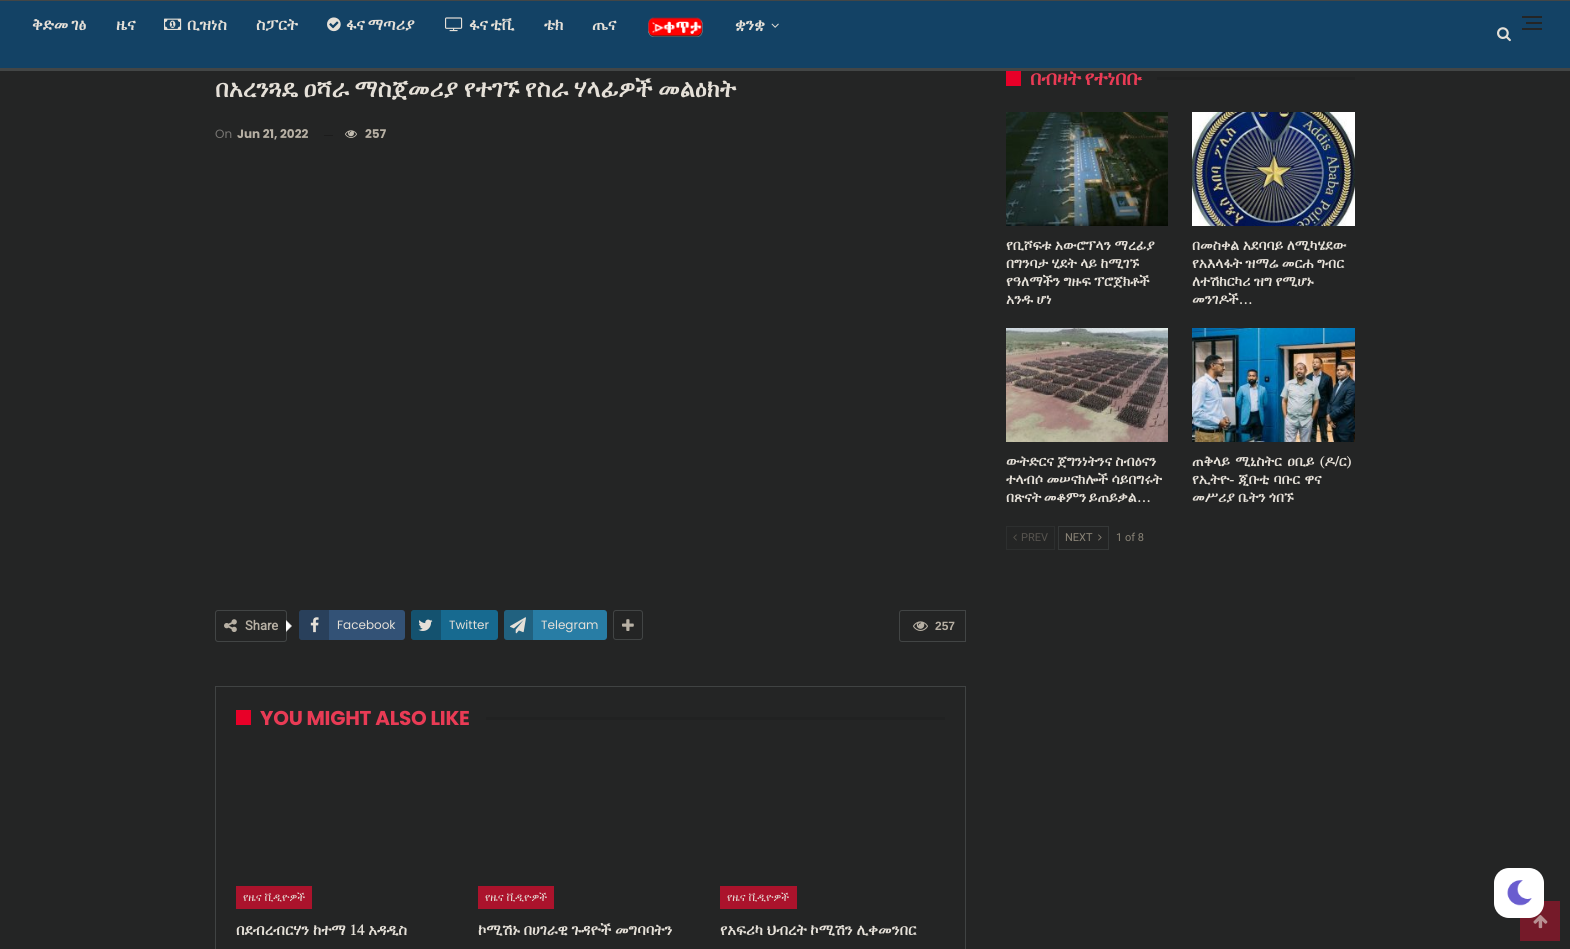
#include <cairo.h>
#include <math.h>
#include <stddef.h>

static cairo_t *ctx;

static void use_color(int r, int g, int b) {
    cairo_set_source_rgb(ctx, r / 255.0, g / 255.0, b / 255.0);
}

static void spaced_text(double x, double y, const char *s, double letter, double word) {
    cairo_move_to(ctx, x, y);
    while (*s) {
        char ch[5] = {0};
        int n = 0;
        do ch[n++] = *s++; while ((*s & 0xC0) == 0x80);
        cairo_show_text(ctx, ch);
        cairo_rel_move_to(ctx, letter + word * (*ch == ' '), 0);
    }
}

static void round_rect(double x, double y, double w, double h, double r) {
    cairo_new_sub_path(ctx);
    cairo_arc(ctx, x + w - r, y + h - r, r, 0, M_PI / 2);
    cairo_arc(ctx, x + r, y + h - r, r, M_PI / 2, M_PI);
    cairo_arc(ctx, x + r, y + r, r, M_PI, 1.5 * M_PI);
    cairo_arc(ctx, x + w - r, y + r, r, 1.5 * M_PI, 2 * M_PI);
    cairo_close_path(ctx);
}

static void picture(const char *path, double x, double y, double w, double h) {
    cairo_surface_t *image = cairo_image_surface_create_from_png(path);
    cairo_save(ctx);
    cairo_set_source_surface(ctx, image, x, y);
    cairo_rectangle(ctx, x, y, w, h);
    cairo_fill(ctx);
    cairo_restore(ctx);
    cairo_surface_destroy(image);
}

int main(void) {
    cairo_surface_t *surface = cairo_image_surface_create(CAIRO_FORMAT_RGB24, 1570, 949);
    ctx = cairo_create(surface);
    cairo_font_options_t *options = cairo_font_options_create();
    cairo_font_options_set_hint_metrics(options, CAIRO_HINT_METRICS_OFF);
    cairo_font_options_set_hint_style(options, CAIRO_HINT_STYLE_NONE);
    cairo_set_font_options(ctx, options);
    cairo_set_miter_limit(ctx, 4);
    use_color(36, 37, 37);
    cairo_paint(ctx);
    use_color(19, 66, 101);
    cairo_rectangle(ctx, 0, 1, 1570, 67);
    cairo_fill(ctx);
    use_color(67, 70, 70);
    cairo_rectangle(ctx, 0, 0, 1570, 1);
    cairo_fill(ctx);
    cairo_rectangle(ctx, 0, 68, 1570, 3);
    cairo_fill(ctx);
    cairo_select_font_face(ctx, "FreeSerif", CAIRO_FONT_SLANT_NORMAL, CAIRO_FONT_WEIGHT_BOLD);
    cairo_set_font_size(ctx, 16);
    use_color(229, 224, 216);
    spaced_text(32, 30, "ቅድመ ገፅ", 0, -1);
    cairo_move_to(ctx, 116, 30);
    cairo_show_text(ctx, "ዜና");
    picture("img1.png", 164, 18, 18, 12);
    cairo_move_to(ctx, 187, 30);
    cairo_show_text(ctx, "ቢዝነስ");
    cairo_move_to(ctx, 256, 30);
    cairo_show_text(ctx, "ስፓርት");
    picture("img2.png", 327, 17, 14, 15);
    spaced_text(346, 30, "ፋና ማጣሪያ", 0, -1);
    picture("img3.png", 445, 17, 18, 15);
    spaced_text(469, 30, "ፋና ቲቪ", 0, -1);
    cairo_move_to(ctx, 544, 30);
    cairo_show_text(ctx, "ቴክ");
    cairo_move_to(ctx, 592, 30);
    cairo_show_text(ctx, "ጤና");
    picture("img4.png", 648, 17, 55, 20);
    cairo_move_to(ctx, 735, 30);
    cairo_show_text(ctx, "ቋንቋ");
    picture("img5.png", 771, 23, 8, 5);
    use_color(36, 37, 37);
    cairo_rectangle(ctx, 1526, 22, 16, 2);
    cairo_fill(ctx);
    cairo_rectangle(ctx, 1522, 16, 20, 2);
    cairo_fill(ctx);
    cairo_rectangle(ctx, 1522, 28, 20, 2);
    cairo_fill(ctx);
    picture("img6.png", 1497, 27, 14, 15);
    cairo_set_font_size(ctx, 24);
    use_color(229, 224, 216);
    spaced_text(215, 97, "በአረንጓዴ ዐሻራ ማስጀመሪያ የተገኙ የስራ ሃላፊዎች መልዕክት", 0, -0.25);
    cairo_select_font_face(ctx, "Poppins", CAIRO_FONT_SLANT_NORMAL, CAIRO_FONT_WEIGHT_NORMAL);
    cairo_set_font_size(ctx, 12);
    use_color(121, 119, 116);
    cairo_move_to(ctx, 215, 138);
    cairo_show_text(ctx, "On");
    cairo_select_font_face(ctx, "Poppins", CAIRO_FONT_SLANT_NORMAL, CAIRO_FONT_WEIGHT_BOLD);
    use_color(183, 176, 164);
    cairo_move_to(ctx, 237, 138);
    cairo_show_text(ctx, "Jun 21, 2022");
    use_color(28, 28, 28);
    cairo_rectangle(ctx, 324, 135, 9, 1);
    cairo_fill(ctx);
    picture("img7.png", 345, 130, 12, 8);
    use_color(183, 176, 164);
    cairo_move_to(ctx, 365, 138);
    cairo_show_text(ctx, "257");
    round_rect(215.5, 610.5, 71, 31, 2.5);
    use_color(66, 69, 69);
    cairo_set_line_width(ctx, 1);
    cairo_stroke(ctx);
    picture("img8.png", 224, 619, 13, 13);
    cairo_select_font_face(ctx, "Roboto", CAIRO_FONT_SLANT_NORMAL, CAIRO_FONT_WEIGHT_BOLD);
    cairo_set_font_size(ctx, 13);
    use_color(183, 176, 164);
    cairo_move_to(ctx, 245, 630);
    cairo_show_text(ctx, "Share");
    use_color(215, 215, 215);
    cairo_new_path(ctx);
    cairo_move_to(ctx, 286, 632);
    cairo_line_to(ctx, 286, 620);
    cairo_line_to(ctx, 292, 626);
    cairo_close_path(ctx);
    cairo_fill(ctx);
    use_color(255, 255, 255);
    cairo_new_path(ctx);
    cairo_move_to(ctx, 286, 631);
    cairo_line_to(ctx, 286, 621);
    cairo_line_to(ctx, 291, 626);
    cairo_close_path(ctx);
    cairo_fill(ctx);
    use_color(51, 82, 118);
    round_rect(299, 610, 106, 30, 3);
    cairo_fill(ctx);
    cairo_set_source_rgba(ctx, 0.051, 0.051, 0.051, 0.25);
    cairo_new_path(ctx);
    cairo_move_to(ctx, 302, 610);
    cairo_line_to(ctx, 329, 610);
    cairo_line_to(ctx, 329, 640);
    cairo_line_to(ctx, 302, 640);
    cairo_curve_to(ctx, 300.5, 640, 299, 638.5, 299, 637);
    cairo_line_to(ctx, 299, 613);
    cairo_curve_to(ctx, 299, 611.5, 300.5, 610, 302, 610);
    cairo_close_path(ctx);
    cairo_fill(ctx);
    picture("img9.png", 310, 617, 9, 16);
    cairo_select_font_face(ctx, "Poppins", CAIRO_FONT_SLANT_NORMAL, CAIRO_FONT_WEIGHT_NORMAL);
    cairo_set_font_size(ctx, 12);
    use_color(229, 224, 216);
    cairo_move_to(ctx, 337, 629);
    cairo_show_text(ctx, "Facebook");
    use_color(23, 106, 144);
    round_rect(411, 610, 87, 30, 3);
    cairo_fill(ctx);
    cairo_set_source_rgba(ctx, 0.051, 0.051, 0.051, 0.25);
    cairo_new_path(ctx);
    cairo_move_to(ctx, 414, 610);
    cairo_line_to(ctx, 441, 610);
    cairo_line_to(ctx, 441, 640);
    cairo_line_to(ctx, 414, 640);
    cairo_curve_to(ctx, 412.5, 640, 411, 638.5, 411, 637);
    cairo_line_to(ctx, 411, 613);
    cairo_curve_to(ctx, 411, 611.5, 412.5, 610, 414, 610);
    cairo_close_path(ctx);
    cairo_fill(ctx);
    picture("img10.png", 418, 619, 15, 12);
    use_color(229, 224, 216);
    cairo_move_to(ctx, 449, 629);
    cairo_show_text(ctx, "Twitter");
    use_color(40, 125, 165);
    round_rect(504, 610, 103, 30, 3);
    cairo_fill(ctx);
    cairo_set_source_rgba(ctx, 0.051, 0.051, 0.051, 0.25);
    cairo_new_path(ctx);
    cairo_move_to(ctx, 507, 610);
    cairo_line_to(ctx, 533, 610);
    cairo_line_to(ctx, 533, 640);
    cairo_line_to(ctx, 507, 640);
    cairo_curve_to(ctx, 505.5, 640, 504, 638.5, 504, 637);
    cairo_line_to(ctx, 504, 613);
    cairo_curve_to(ctx, 504, 611.5, 505.5, 610, 507, 610);
    cairo_close_path(ctx);
    cairo_fill(ctx);
    picture("img11.png", 510, 617, 16, 17);
    use_color(229, 224, 216);
    cairo_move_to(ctx, 541, 629);
    cairo_show_text(ctx, "Telegram");
    round_rect(613.5, 610.5, 29, 29, 2.5);
    use_color(66, 69, 69);
    cairo_stroke(ctx);
    picture("img12.png", 622, 619, 12, 12);
    cairo_new_path(ctx);
    cairo_move_to(ctx, 902, 610.5);
    cairo_line_to(ctx, 965.5, 610.5);
    cairo_line_to(ctx, 965.5, 641.5);
    cairo_line_to(ctx, 902, 641.5);
    cairo_curve_to(ctx, 900.5, 641.5, 899.5, 640.5, 899.5, 639);
    cairo_line_to(ctx, 899.5, 613);
    cairo_curve_to(ctx, 899.5, 611.5, 900.5, 610.5, 902, 610.5);
    cairo_close_path(ctx);
    cairo_stroke(ctx);
    picture("img13.png", 913, 621, 15, 10);
    cairo_select_font_face(ctx, "Liberation Sans", CAIRO_FONT_SLANT_NORMAL, CAIRO_FONT_WEIGHT_BOLD);
    use_color(183, 176, 164);
    cairo_move_to(ctx, 935, 630);
    cairo_show_text(ctx, "257");
    cairo_rectangle(ctx, 215.5, 686.5, 750, 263);
    use_color(64, 67, 67);
    cairo_stroke(ctx);
    use_color(232, 0, 40);
    cairo_rectangle(ctx, 236, 710, 15, 15);
    cairo_fill(ctx);
    cairo_select_font_face(ctx, "Poppins", CAIRO_FONT_SLANT_NORMAL, CAIRO_FONT_WEIGHT_BOLD);
    cairo_set_font_size(ctx, 20);
    use_color(233, 59, 85);
    spaced_text(260, 725, "YOU MIGHT ALSO LIKE", -0.25, 0);
    use_color(33, 34, 34);
    cairo_rectangle(ctx, 486, 717, 459, 3);
    cairo_fill(ctx);
    use_color(171, 19, 44);
    cairo_rectangle(ctx, 236, 886, 76, 23);
    cairo_fill(ctx);
    cairo_select_font_face(ctx, "FreeSerif", CAIRO_FONT_SLANT_NORMAL, CAIRO_FONT_WEIGHT_NORMAL);
    cairo_set_font_size(ctx, 11);
    use_color(229, 224, 216);
    cairo_move_to(ctx, 243, 901);
    cairo_show_text(ctx, "የዜና ቪዲዮዎች");
    cairo_select_font_face(ctx, "FreeSerif", CAIRO_FONT_SLANT_NORMAL, CAIRO_FONT_WEIGHT_BOLD);
    cairo_set_font_size(ctx, 15);
    cairo_move_to(ctx, 236, 935);
    cairo_show_text(ctx, "በደብረብርሃን ከተማ 14 አዳዲስ");
    use_color(171, 19, 44);
    cairo_rectangle(ctx, 478, 886, 76, 23);
    cairo_fill(ctx);
    cairo_select_font_face(ctx, "FreeSerif", CAIRO_FONT_SLANT_NORMAL, CAIRO_FONT_WEIGHT_NORMAL);
    cairo_set_font_size(ctx, 11);
    use_color(229, 224, 216);
    cairo_move_to(ctx, 485, 901);
    cairo_show_text(ctx, "የዜና ቪዲዮዎች");
    cairo_select_font_face(ctx, "FreeSerif", CAIRO_FONT_SLANT_NORMAL, CAIRO_FONT_WEIGHT_BOLD);
    cairo_set_font_size(ctx, 15);
    cairo_move_to(ctx, 478, 935);
    cairo_show_text(ctx, "ኮሚሽኑ በሀገራዊ ጉዳዮች መግባባትን");
    use_color(171, 19, 44);
    cairo_rectangle(ctx, 720, 886, 77, 23);
    cairo_fill(ctx);
    cairo_select_font_face(ctx, "FreeSerif", CAIRO_FONT_SLANT_NORMAL, CAIRO_FONT_WEIGHT_NORMAL);
    cairo_set_font_size(ctx, 11);
    use_color(229, 224, 216);
    cairo_move_to(ctx, 727, 901);
    cairo_show_text(ctx, "የዜና ቪዲዮዎች");
    cairo_select_font_face(ctx, "FreeSerif", CAIRO_FONT_SLANT_NORMAL, CAIRO_FONT_WEIGHT_BOLD);
    cairo_set_font_size(ctx, 15);
    cairo_move_to(ctx, 720, 935);
    cairo_show_text(ctx, "የአፍሪካ ህብረት ኮሚሽን ሊቀመንበር");
    use_color(232, 0, 40);
    cairo_rectangle(ctx, 1006, 71, 15, 15);
    cairo_fill(ctx);
    cairo_set_font_size(ctx, 20);
    use_color(233, 59, 85);
    spaced_text(1030, 85, "በብዛት የተነበቡ", -0.25, -1);
    use_color(33, 34, 34);
    cairo_rectangle(ctx, 1157, 77, 198, 3);
    cairo_fill(ctx);
    picture("img14.png", 1006, 112, 162, 114);
    cairo_set_font_size(ctx, 14);
    use_color(229, 224, 216);
    cairo_move_to(ctx, 1006, 250);
    cairo_show_text(ctx, "የቢሾፍቱ አውሮፕላን ማረፊያ");
    cairo_move_to(ctx, 1006, 268);
    cairo_show_text(ctx, "በግንባታ ሂደት ላይ ከሚገኙ");
    cairo_move_to(ctx, 1006, 286);
    cairo_show_text(ctx, "የዓለማችን ግዙፍ ፕሮጀክቶች");
    cairo_move_to(ctx, 1006, 304);
    cairo_show_text(ctx, "አንዱ ሆነ");
    picture("img15.png", 1192, 112, 163, 114);
    cairo_move_to(ctx, 1192, 250);
    cairo_show_text(ctx, "በመስቀል አደባባይ ለሚካሄደው");
    cairo_move_to(ctx, 1192, 268);
    cairo_show_text(ctx, "የአእላፋት ዝማሬ መርሐ ግብር");
    cairo_move_to(ctx, 1192, 286);
    cairo_show_text(ctx, "ለተሽከርካሪ ዝግ የሚሆኑ");
    cairo_move_to(ctx, 1192, 304);
    cairo_show_text(ctx, "መንገዶች…");
    picture("img16.png", 1006, 328, 162, 114);
    cairo_move_to(ctx, 1006, 466);
    cairo_show_text(ctx, "ውትድርና ጀግንነትንና ስብዕናን");
    cairo_move_to(ctx, 1006, 484);
    cairo_show_text(ctx, "ተላብሶ መሠናክሎች ሳይበግሩት");
    spaced_text(1006, 502, "በጽናት መቆምን ይጠይቃል…", 0, -1);
    picture("img17.png", 1192, 328, 163, 114);
    spaced_text(1192, 466, "ጠቅላይ ሚኒስትር ዐቢይ (ዶ/ር)", 0, 2);
    spaced_text(1192, 484, "የኢትዮ- ጂቡቲ ባቡር ዋና", 0, 1);
    cairo_move_to(ctx, 1192, 502);
    cairo_show_text(ctx, "መሥሪያ ቤትን ጎበኙ");
    cairo_rectangle(ctx, 1006.5, 526.5, 48, 23);
    use_color(45, 47, 47);
    cairo_stroke(ctx);
    picture("img18.png", 1013, 534, 4, 7);
    cairo_select_font_face(ctx, "Roboto", CAIRO_FONT_SLANT_NORMAL, CAIRO_FONT_WEIGHT_NORMAL);
    cairo_set_font_size(ctx, 11);
    use_color(87, 84, 79);
    cairo_move_to(ctx, 1021, 541);
    cairo_show_text(ctx, "PREV");
    cairo_rectangle(ctx, 1058.5, 526.5, 50, 23);
    use_color(53, 56, 56);
    cairo_stroke(ctx);
    use_color(138, 132, 119);
    cairo_move_to(ctx, 1065, 541);
    cairo_show_text(ctx, "NEXT");
    picture("img19.png", 1098, 534, 4, 7);
    cairo_move_to(ctx, 1116, 541);
    cairo_show_text(ctx, "1 of 8");
    use_color(117, 26, 41);
    cairo_rectangle(ctx, 1520, 901, 40, 40);
    cairo_fill(ctx);
    picture("img21.png", 1533, 915, 15, 14);
    use_color(255, 255, 255);
    round_rect(1494, 868, 50, 50, 15);
    cairo_fill(ctx);
    picture("img20.png", 1507, 880, 25, 26);
    cairo_surface_write_to_png(surface, "result.png");
    cairo_font_options_destroy(options);
    cairo_destroy(ctx);
    cairo_surface_destroy(surface);
    return 0;
}
